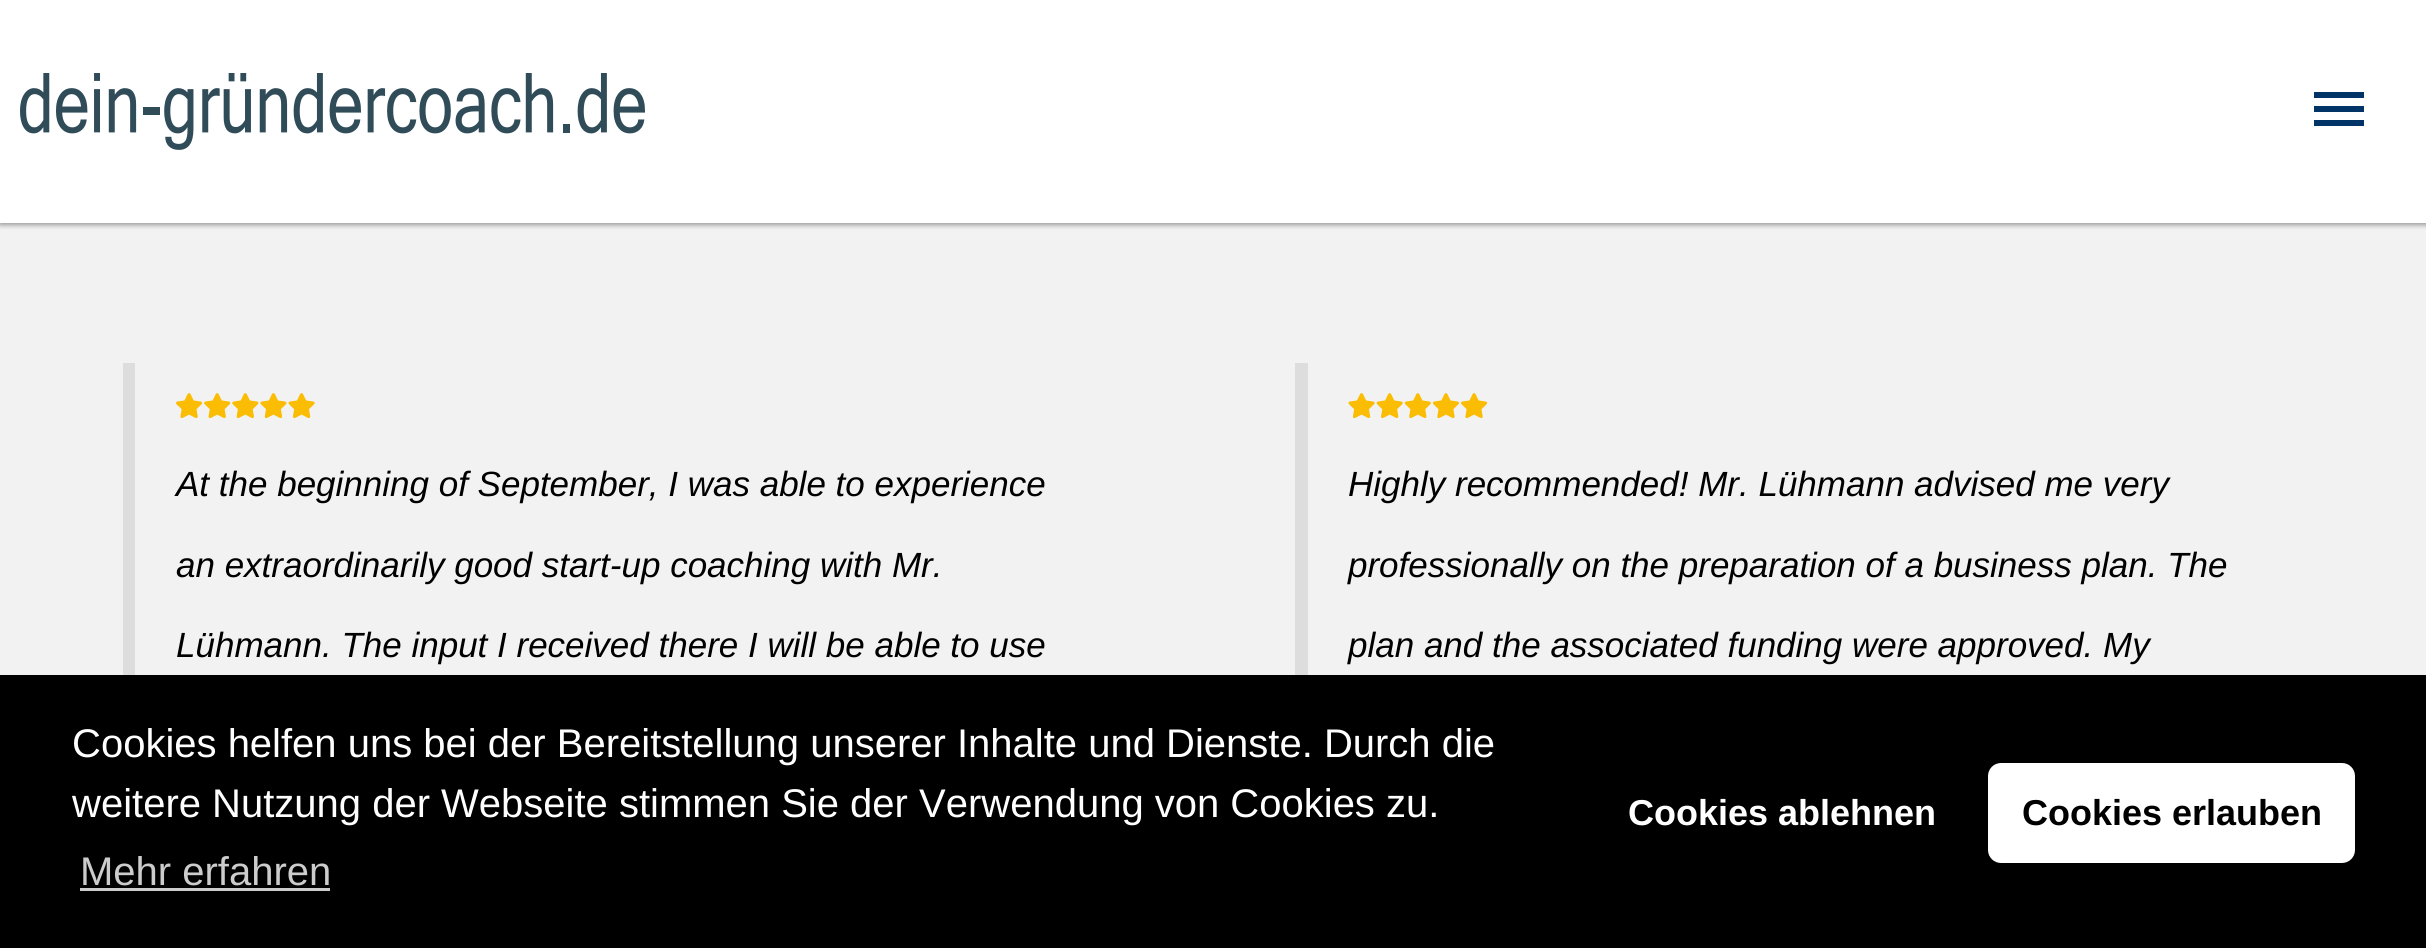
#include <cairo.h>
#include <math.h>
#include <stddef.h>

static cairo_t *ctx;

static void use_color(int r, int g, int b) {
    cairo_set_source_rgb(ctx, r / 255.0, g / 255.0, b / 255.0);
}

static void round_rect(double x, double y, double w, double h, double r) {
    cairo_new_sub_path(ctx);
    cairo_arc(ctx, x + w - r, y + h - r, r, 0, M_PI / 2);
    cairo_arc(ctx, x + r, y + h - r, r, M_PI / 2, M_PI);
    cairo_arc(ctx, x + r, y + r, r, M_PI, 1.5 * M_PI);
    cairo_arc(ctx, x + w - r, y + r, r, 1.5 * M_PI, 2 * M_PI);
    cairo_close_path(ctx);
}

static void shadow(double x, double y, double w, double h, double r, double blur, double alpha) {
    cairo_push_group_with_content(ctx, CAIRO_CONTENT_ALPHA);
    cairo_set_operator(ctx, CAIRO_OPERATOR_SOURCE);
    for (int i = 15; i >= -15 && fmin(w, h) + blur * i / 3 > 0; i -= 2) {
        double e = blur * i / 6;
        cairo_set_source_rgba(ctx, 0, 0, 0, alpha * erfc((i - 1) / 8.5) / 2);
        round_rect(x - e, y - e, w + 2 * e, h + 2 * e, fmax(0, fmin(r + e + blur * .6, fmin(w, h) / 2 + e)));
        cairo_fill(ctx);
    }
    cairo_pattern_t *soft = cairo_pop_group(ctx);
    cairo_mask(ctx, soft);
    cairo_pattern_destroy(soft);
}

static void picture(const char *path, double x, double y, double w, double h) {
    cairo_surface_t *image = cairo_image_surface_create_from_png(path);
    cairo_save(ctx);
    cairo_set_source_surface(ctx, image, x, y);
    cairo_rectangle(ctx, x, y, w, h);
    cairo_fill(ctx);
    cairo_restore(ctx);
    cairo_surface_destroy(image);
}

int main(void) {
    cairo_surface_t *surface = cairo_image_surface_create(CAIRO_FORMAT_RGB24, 2426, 948);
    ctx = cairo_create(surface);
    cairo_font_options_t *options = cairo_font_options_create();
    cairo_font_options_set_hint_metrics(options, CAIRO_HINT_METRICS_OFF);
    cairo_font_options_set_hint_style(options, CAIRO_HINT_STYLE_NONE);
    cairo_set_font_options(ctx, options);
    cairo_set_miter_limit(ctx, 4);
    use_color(242, 242, 242);
    cairo_paint(ctx);
    use_color(0, 0, 0);
    shadow(0, 3, 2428, 222, 0, 2.5, 0.2);
    shadow(0, 3, 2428, 222, 0, 2.5, 0.2);
    use_color(255, 255, 255);
    cairo_rectangle(ctx, 0, 0, 2426, 223);
    cairo_fill(ctx);
    picture("img1.png", 20, 73, 625, 77);
    use_color(0, 51, 102);
    cairo_new_path(ctx);
    cairo_move_to(ctx, 2314, 92);
    cairo_line_to(ctx, 2364, 92);
    cairo_line_to(ctx, 2364, 98);
    cairo_line_to(ctx, 2314, 98);
    cairo_close_path(ctx);
    cairo_move_to(ctx, 2314, 112);
    cairo_line_to(ctx, 2314, 106);
    cairo_line_to(ctx, 2364, 106);
    cairo_line_to(ctx, 2364, 112);
    cairo_close_path(ctx);
    cairo_move_to(ctx, 2314, 126);
    cairo_line_to(ctx, 2314, 120);
    cairo_line_to(ctx, 2364, 120);
    cairo_line_to(ctx, 2364, 126);
    cairo_close_path(ctx);
    cairo_fill(ctx);
    use_color(221, 221, 221);
    cairo_rectangle(ctx, 123, 363, 12, 312);
    cairo_fill(ctx);
    picture("img2.png", 176, 393, 139, 26);
    cairo_select_font_face(ctx, "Liberation Sans", CAIRO_FONT_SLANT_ITALIC, CAIRO_FONT_WEIGHT_NORMAL);
    cairo_set_font_size(ctx, 35);
    use_color(0, 0, 0);
    cairo_move_to(ctx, 176, 496);
    cairo_show_text(ctx, "At the beginning of September, I was able to experience");
    cairo_move_to(ctx, 176, 577);
    cairo_show_text(ctx, "an extraordinarily good start-up coaching with Mr.");
    cairo_move_to(ctx, 176, 657);
    cairo_show_text(ctx, "Lühmann. The input I received there I will be able to use");
    use_color(221, 221, 221);
    cairo_rectangle(ctx, 1295, 363, 13, 312);
    cairo_fill(ctx);
    picture("img3.png", 1348, 393, 140, 26);
    use_color(0, 0, 0);
    cairo_move_to(ctx, 1348, 496);
    cairo_show_text(ctx, "Highly recommended! Mr. Lühmann advised me very");
    cairo_move_to(ctx, 1348, 577);
    cairo_show_text(ctx, "professionally on the preparation of a business plan. The");
    cairo_move_to(ctx, 1348, 657);
    cairo_show_text(ctx, "plan and the associated funding were approved. My");
    cairo_rectangle(ctx, 0, 675, 2426, 273);
    cairo_fill(ctx);
    cairo_select_font_face(ctx, "Liberation Sans", CAIRO_FONT_SLANT_NORMAL, CAIRO_FONT_WEIGHT_NORMAL);
    cairo_set_font_size(ctx, 40);
    use_color(255, 255, 255);
    cairo_move_to(ctx, 72, 757);
    cairo_show_text(ctx, "Cookies helfen uns bei der Bereitstellung unserer Inhalte und Dienste. Durch die");
    cairo_move_to(ctx, 72, 817);
    cairo_show_text(ctx, "weitere Nutzung der Webseite stimmen Sie der Verwendung von Cookies zu.");
    use_color(204, 204, 204);
    cairo_move_to(ctx, 80, 885);
    cairo_show_text(ctx, "Mehr erfahren");
    cairo_rectangle(ctx, 80, 888, 250, 3);
    cairo_fill(ctx);
    cairo_select_font_face(ctx, "Liberation Sans", CAIRO_FONT_SLANT_NORMAL, CAIRO_FONT_WEIGHT_BOLD);
    cairo_set_font_size(ctx, 36);
    use_color(255, 255, 255);
    cairo_move_to(ctx, 1628, 825);
    cairo_show_text(ctx, "Cookies ablehnen");
    round_rect(1988, 763, 367, 100, 13);
    cairo_fill(ctx);
    use_color(0, 0, 0);
    cairo_move_to(ctx, 2022, 825);
    cairo_show_text(ctx, "Cookies erlauben");
    cairo_surface_write_to_png(surface, "result.png");
    cairo_font_options_destroy(options);
    cairo_destroy(ctx);
    cairo_surface_destroy(surface);
    return 0;
}
